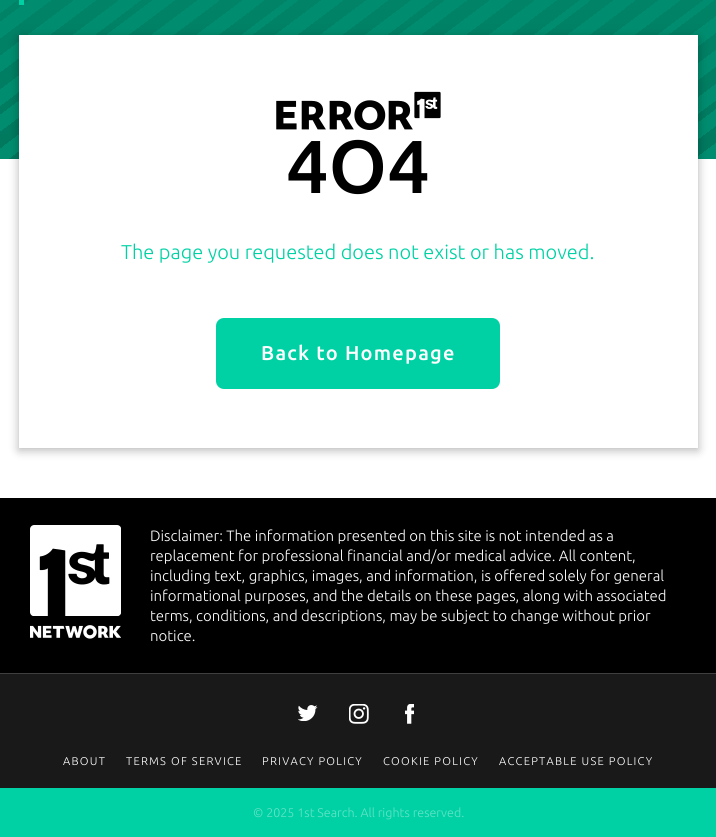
#include <cairo.h>
#include <math.h>
#include <stddef.h>

static cairo_t *ctx;

static void use_color(int r, int g, int b) {
    cairo_set_source_rgb(ctx, r / 255.0, g / 255.0, b / 255.0);
}

static void spaced_text(double x, double y, const char *s, double letter, double word) {
    cairo_move_to(ctx, x, y);
    while (*s) {
        char ch[5] = {0};
        int n = 0;
        do ch[n++] = *s++; while ((*s & 0xC0) == 0x80);
        cairo_show_text(ctx, ch);
        cairo_rel_move_to(ctx, letter + word * (*ch == ' '), 0);
    }
}

static void round_rect(double x, double y, double w, double h, double r) {
    cairo_new_sub_path(ctx);
    cairo_arc(ctx, x + w - r, y + h - r, r, 0, M_PI / 2);
    cairo_arc(ctx, x + r, y + h - r, r, M_PI / 2, M_PI);
    cairo_arc(ctx, x + r, y + r, r, M_PI, 1.5 * M_PI);
    cairo_arc(ctx, x + w - r, y + r, r, 1.5 * M_PI, 2 * M_PI);
    cairo_close_path(ctx);
}

static void shadow(double x, double y, double w, double h, double r, double blur, double alpha) {
    cairo_push_group_with_content(ctx, CAIRO_CONTENT_ALPHA);
    cairo_set_operator(ctx, CAIRO_OPERATOR_SOURCE);
    for (int i = 15; i >= -15 && fmin(w, h) + blur * i / 3 > 0; i -= 2) {
        double e = blur * i / 6;
        cairo_set_source_rgba(ctx, 0, 0, 0, alpha * erfc((i - 1) / 8.5) / 2);
        round_rect(x - e, y - e, w + 2 * e, h + 2 * e, fmax(0, fmin(r + e + blur * .6, fmin(w, h) / 2 + e)));
        cairo_fill(ctx);
    }
    cairo_pattern_t *soft = cairo_pop_group(ctx);
    cairo_mask(ctx, soft);
    cairo_pattern_destroy(soft);
}

static void picture(const char *path, double x, double y, double w, double h) {
    cairo_surface_t *image = cairo_image_surface_create_from_png(path);
    cairo_save(ctx);
    cairo_set_source_surface(ctx, image, x, y);
    cairo_rectangle(ctx, x, y, w, h);
    cairo_fill(ctx);
    cairo_restore(ctx);
    cairo_surface_destroy(image);
}

int main(void) {
    cairo_surface_t *surface = cairo_image_surface_create(CAIRO_FORMAT_RGB24, 716, 837);
    ctx = cairo_create(surface);
    cairo_font_options_t *options = cairo_font_options_create();
    cairo_font_options_set_hint_metrics(options, CAIRO_HINT_METRICS_OFF);
    cairo_font_options_set_hint_style(options, CAIRO_HINT_STYLE_NONE);
    cairo_set_font_options(ctx, options);
    cairo_set_miter_limit(ctx, 4);
    cairo_pattern_t *gradient;
    use_color(255, 255, 255);
    cairo_paint(ctx);
    gradient = cairo_pattern_create_linear(358, 159, 358, -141);
    cairo_pattern_add_color_stop_rgba(gradient, 0, 0, 0.471, 0.369, 1);
    cairo_pattern_add_color_stop_rgba(gradient, 1, 0, 0.553, 0.435, 1);
    cairo_set_source(ctx, gradient);
    cairo_pattern_destroy(gradient);
    cairo_rectangle(ctx, 0, 0, 716, 159);
    cairo_fill(ctx);
    gradient = cairo_pattern_create_linear(560, 277, 154, -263);
    cairo_pattern_add_color_stop_rgba(gradient, 0, 0, 0.553, 0.435, 1);
    cairo_pattern_add_color_stop_rgba(gradient, 0.02, 0, 0.553, 0.435, 1);
    cairo_pattern_add_color_stop_rgba(gradient, 0.02, 0, 0.553, 0.435, 0);
    cairo_pattern_add_color_stop_rgba(gradient, 0.04, 0, 0.553, 0.435, 0);
    cairo_pattern_add_color_stop_rgba(gradient, 0.04, 0, 0.553, 0.435, 1);
    cairo_pattern_add_color_stop_rgba(gradient, 0.06, 0, 0.553, 0.435, 1);
    cairo_pattern_add_color_stop_rgba(gradient, 0.06, 0, 0.553, 0.435, 0);
    cairo_pattern_add_color_stop_rgba(gradient, 0.07, 0, 0.553, 0.435, 0);
    cairo_pattern_add_color_stop_rgba(gradient, 0.07, 0, 0.553, 0.435, 1);
    cairo_pattern_add_color_stop_rgba(gradient, 0.09, 0, 0.553, 0.435, 1);
    cairo_pattern_add_color_stop_rgba(gradient, 0.09, 0, 0.553, 0.435, 0);
    cairo_pattern_add_color_stop_rgba(gradient, 0.11, 0, 0.553, 0.435, 0);
    cairo_pattern_add_color_stop_rgba(gradient, 0.11, 0, 0.553, 0.435, 1);
    cairo_pattern_add_color_stop_rgba(gradient, 0.13, 0, 0.553, 0.435, 1);
    cairo_pattern_add_color_stop_rgba(gradient, 0.13, 0, 0.553, 0.435, 0);
    cairo_pattern_add_color_stop_rgba(gradient, 0.15, 0, 0.553, 0.435, 0);
    cairo_pattern_add_color_stop_rgba(gradient, 0.15, 0, 0.553, 0.435, 1);
    cairo_pattern_add_color_stop_rgba(gradient, 0.17, 0, 0.553, 0.435, 1);
    cairo_pattern_add_color_stop_rgba(gradient, 0.17, 0, 0.553, 0.435, 0);
    cairo_pattern_add_color_stop_rgba(gradient, 0.19, 0, 0.553, 0.435, 0);
    cairo_pattern_add_color_stop_rgba(gradient, 0.19, 0, 0.553, 0.435, 1);
    cairo_pattern_add_color_stop_rgba(gradient, 0.2, 0, 0.553, 0.435, 1);
    cairo_pattern_add_color_stop_rgba(gradient, 0.2, 0, 0.553, 0.435, 0);
    cairo_pattern_add_color_stop_rgba(gradient, 0.22, 0, 0.553, 0.435, 0);
    cairo_pattern_add_color_stop_rgba(gradient, 0.22, 0, 0.553, 0.435, 1);
    cairo_pattern_add_color_stop_rgba(gradient, 0.24, 0, 0.553, 0.435, 1);
    cairo_pattern_add_color_stop_rgba(gradient, 0.24, 0, 0.553, 0.435, 0);
    cairo_pattern_add_color_stop_rgba(gradient, 0.26, 0, 0.553, 0.435, 0);
    cairo_pattern_add_color_stop_rgba(gradient, 0.26, 0, 0.553, 0.435, 1);
    cairo_pattern_add_color_stop_rgba(gradient, 0.28, 0, 0.553, 0.435, 1);
    cairo_pattern_add_color_stop_rgba(gradient, 0.28, 0, 0.553, 0.435, 0);
    cairo_pattern_add_color_stop_rgba(gradient, 0.3, 0, 0.553, 0.435, 0);
    cairo_pattern_add_color_stop_rgba(gradient, 0.3, 0, 0.553, 0.435, 1);
    cairo_pattern_add_color_stop_rgba(gradient, 0.31, 0, 0.553, 0.435, 1);
    cairo_pattern_add_color_stop_rgba(gradient, 0.31, 0, 0.553, 0.435, 0);
    cairo_pattern_add_color_stop_rgba(gradient, 0.33, 0, 0.553, 0.435, 0);
    cairo_pattern_add_color_stop_rgba(gradient, 0.33, 0, 0.553, 0.435, 1);
    cairo_pattern_add_color_stop_rgba(gradient, 0.35, 0, 0.553, 0.435, 1);
    cairo_pattern_add_color_stop_rgba(gradient, 0.35, 0, 0.553, 0.435, 0);
    cairo_pattern_add_color_stop_rgba(gradient, 0.37, 0, 0.553, 0.435, 0);
    cairo_pattern_add_color_stop_rgba(gradient, 0.37, 0, 0.553, 0.435, 1);
    cairo_pattern_add_color_stop_rgba(gradient, 0.39, 0, 0.553, 0.435, 1);
    cairo_pattern_add_color_stop_rgba(gradient, 0.39, 0, 0.553, 0.435, 0);
    cairo_pattern_add_color_stop_rgba(gradient, 0.41, 0, 0.553, 0.435, 0);
    cairo_pattern_add_color_stop_rgba(gradient, 0.41, 0, 0.553, 0.435, 1);
    cairo_pattern_add_color_stop_rgba(gradient, 0.43, 0, 0.553, 0.435, 1);
    cairo_pattern_add_color_stop_rgba(gradient, 0.43, 0, 0.553, 0.435, 0);
    cairo_pattern_add_color_stop_rgba(gradient, 0.44, 0, 0.553, 0.435, 0);
    cairo_pattern_add_color_stop_rgba(gradient, 0.44, 0, 0.553, 0.435, 1);
    cairo_pattern_add_color_stop_rgba(gradient, 0.46, 0, 0.553, 0.435, 1);
    cairo_pattern_add_color_stop_rgba(gradient, 0.46, 0, 0.553, 0.435, 0);
    cairo_pattern_add_color_stop_rgba(gradient, 0.48, 0, 0.553, 0.435, 0);
    cairo_pattern_add_color_stop_rgba(gradient, 0.48, 0, 0.553, 0.435, 1);
    cairo_pattern_add_color_stop_rgba(gradient, 0.5, 0, 0.553, 0.435, 1);
    cairo_pattern_add_color_stop_rgba(gradient, 0.5, 0, 0.553, 0.435, 0);
    cairo_pattern_add_color_stop_rgba(gradient, 0.52, 0, 0.553, 0.435, 0);
    cairo_pattern_add_color_stop_rgba(gradient, 0.52, 0, 0.553, 0.435, 1);
    cairo_pattern_add_color_stop_rgba(gradient, 0.54, 0, 0.553, 0.435, 1);
    cairo_pattern_add_color_stop_rgba(gradient, 0.54, 0, 0.553, 0.435, 0);
    cairo_pattern_add_color_stop_rgba(gradient, 0.56, 0, 0.553, 0.435, 0);
    cairo_pattern_add_color_stop_rgba(gradient, 0.56, 0, 0.553, 0.435, 1);
    cairo_pattern_add_color_stop_rgba(gradient, 0.57, 0, 0.553, 0.435, 1);
    cairo_pattern_add_color_stop_rgba(gradient, 0.57, 0, 0.553, 0.435, 0);
    cairo_pattern_add_color_stop_rgba(gradient, 0.59, 0, 0.553, 0.435, 0);
    cairo_pattern_add_color_stop_rgba(gradient, 0.59, 0, 0.553, 0.435, 1);
    cairo_pattern_add_color_stop_rgba(gradient, 0.61, 0, 0.553, 0.435, 1);
    cairo_pattern_add_color_stop_rgba(gradient, 0.61, 0, 0.553, 0.435, 0);
    cairo_pattern_add_color_stop_rgba(gradient, 0.63, 0, 0.553, 0.435, 0);
    cairo_pattern_add_color_stop_rgba(gradient, 0.63, 0, 0.553, 0.435, 1);
    cairo_pattern_add_color_stop_rgba(gradient, 0.65, 0, 0.553, 0.435, 1);
    cairo_pattern_add_color_stop_rgba(gradient, 0.65, 0, 0.553, 0.435, 0);
    cairo_pattern_add_color_stop_rgba(gradient, 0.67, 0, 0.553, 0.435, 0);
    cairo_pattern_add_color_stop_rgba(gradient, 0.67, 0, 0.553, 0.435, 1);
    cairo_pattern_add_color_stop_rgba(gradient, 0.69, 0, 0.553, 0.435, 1);
    cairo_pattern_add_color_stop_rgba(gradient, 0.69, 0, 0.553, 0.435, 0);
    cairo_pattern_add_color_stop_rgba(gradient, 0.7, 0, 0.553, 0.435, 0);
    cairo_pattern_add_color_stop_rgba(gradient, 0.7, 0, 0.553, 0.435, 1);
    cairo_pattern_add_color_stop_rgba(gradient, 0.72, 0, 0.553, 0.435, 1);
    cairo_pattern_add_color_stop_rgba(gradient, 0.72, 0, 0.553, 0.435, 0);
    cairo_pattern_add_color_stop_rgba(gradient, 0.74, 0, 0.553, 0.435, 0);
    cairo_pattern_add_color_stop_rgba(gradient, 0.74, 0, 0.553, 0.435, 1);
    cairo_pattern_add_color_stop_rgba(gradient, 0.76, 0, 0.553, 0.435, 1);
    cairo_pattern_add_color_stop_rgba(gradient, 0.76, 0, 0.553, 0.435, 0);
    cairo_pattern_add_color_stop_rgba(gradient, 0.78, 0, 0.553, 0.435, 0);
    cairo_pattern_add_color_stop_rgba(gradient, 0.78, 0, 0.553, 0.435, 1);
    cairo_pattern_add_color_stop_rgba(gradient, 0.8, 0, 0.553, 0.435, 1);
    cairo_pattern_add_color_stop_rgba(gradient, 0.8, 0, 0.553, 0.435, 0);
    cairo_pattern_add_color_stop_rgba(gradient, 0.81, 0, 0.553, 0.435, 0);
    cairo_pattern_add_color_stop_rgba(gradient, 0.81, 0, 0.553, 0.435, 1);
    cairo_pattern_add_color_stop_rgba(gradient, 0.83, 0, 0.553, 0.435, 1);
    cairo_pattern_add_color_stop_rgba(gradient, 0.83, 0, 0.553, 0.435, 0);
    cairo_pattern_add_color_stop_rgba(gradient, 0.85, 0, 0.553, 0.435, 0);
    cairo_pattern_add_color_stop_rgba(gradient, 0.85, 0, 0.553, 0.435, 1);
    cairo_pattern_add_color_stop_rgba(gradient, 0.87, 0, 0.553, 0.435, 1);
    cairo_pattern_add_color_stop_rgba(gradient, 0.87, 0, 0.553, 0.435, 0);
    cairo_pattern_add_color_stop_rgba(gradient, 0.89, 0, 0.553, 0.435, 0);
    cairo_pattern_add_color_stop_rgba(gradient, 0.89, 0, 0.553, 0.435, 1);
    cairo_pattern_add_color_stop_rgba(gradient, 0.91, 0, 0.553, 0.435, 1);
    cairo_pattern_add_color_stop_rgba(gradient, 0.91, 0, 0.553, 0.435, 0);
    cairo_pattern_add_color_stop_rgba(gradient, 0.93, 0, 0.553, 0.435, 0);
    cairo_pattern_add_color_stop_rgba(gradient, 0.93, 0, 0.553, 0.435, 1);
    cairo_pattern_add_color_stop_rgba(gradient, 0.94, 0, 0.553, 0.435, 1);
    cairo_pattern_add_color_stop_rgba(gradient, 0.94, 0, 0.553, 0.435, 0);
    cairo_pattern_add_color_stop_rgba(gradient, 0.96, 0, 0.553, 0.435, 0);
    cairo_pattern_add_color_stop_rgba(gradient, 0.96, 0, 0.553, 0.435, 1);
    cairo_pattern_add_color_stop_rgba(gradient, 0.98, 0, 0.553, 0.435, 1);
    cairo_pattern_add_color_stop_rgba(gradient, 0.98, 0, 0.553, 0.435, 0);
    cairo_pattern_add_color_stop_rgba(gradient, 1, 1, 0, 0, 0);
    cairo_set_source(ctx, gradient);
    cairo_pattern_destroy(gradient);
    cairo_rectangle(ctx, 0, 0, 716, 159);
    cairo_fill(ctx);
    use_color(0, 209, 164);
    cairo_rectangle(ctx, 19, 0, 5, 5);
    cairo_fill(ctx);
    use_color(0, 0, 0);
    shadow(19, 38, 679, 412, 0, 5, 0.3);
    use_color(255, 255, 255);
    cairo_rectangle(ctx, 19, 35, 679, 413);
    cairo_fill(ctx);
    picture("img1.png", 276, 91, 165, 39);
    cairo_select_font_face(ctx, "Ubuntu Medium", CAIRO_FONT_SLANT_NORMAL, CAIRO_FONT_WEIGHT_NORMAL);
    cairo_set_font_size(ctx, 75);
    use_color(0, 0, 0);
    cairo_move_to(ctx, 286, 193);
    cairo_show_text(ctx, "4O4");
    cairo_select_font_face(ctx, "Ubuntu Light", CAIRO_FONT_SLANT_NORMAL, CAIRO_FONT_WEIGHT_NORMAL);
    cairo_set_font_size(ctx, 20);
    use_color(0, 209, 164);
    cairo_move_to(ctx, 121, 259);
    cairo_show_text(ctx, "The page you requested does not exist or has moved.");
    round_rect(216, 318, 284, 71, 8);
    cairo_fill(ctx);
    cairo_select_font_face(ctx, "Ubuntu Medium", CAIRO_FONT_SLANT_NORMAL, CAIRO_FONT_WEIGHT_NORMAL);
    use_color(255, 255, 255);
    spaced_text(261, 360, "Back to Homepage", 1.25, 0);
    use_color(25, 25, 25);
    cairo_rectangle(ctx, 0, 674, 716, 114);
    cairo_fill(ctx);
    use_color(0, 0, 0);
    cairo_rectangle(ctx, 0, 498, 716, 175);
    cairo_fill(ctx);
    use_color(63, 63, 63);
    cairo_rectangle(ctx, 0, 673, 716, 1);
    cairo_fill(ctx);
    picture("img2.png", 30, 525, 91, 91);
    picture("img3.png", 30, 625, 91, 14);
    cairo_select_font_face(ctx, "Ubuntu Light", CAIRO_FONT_SLANT_NORMAL, CAIRO_FONT_WEIGHT_NORMAL);
    cairo_set_font_size(ctx, 15);
    use_color(255, 255, 255);
    cairo_move_to(ctx, 150, 541);
    cairo_show_text(ctx, "Disclaimer: The information presented on this site is not intended as a");
    cairo_move_to(ctx, 150, 561);
    cairo_show_text(ctx, "replacement for professional financial and/or medical advice. All content,");
    cairo_move_to(ctx, 150, 581);
    cairo_show_text(ctx, "including text, graphics, images, and information, is offered solely for general");
    cairo_move_to(ctx, 150, 601);
    cairo_show_text(ctx, "informational purposes, and the details on these pages, along with associated");
    cairo_move_to(ctx, 150, 621);
    cairo_show_text(ctx, "terms, conditions, and descriptions, may be subject to change without prior");
    cairo_move_to(ctx, 150, 641);
    cairo_show_text(ctx, "notice.");
    picture("img4.png", 298, 705, 20, 16);
    picture("img5.png", 349, 704, 20, 20);
    picture("img6.png", 405, 704, 9, 20);
    cairo_set_font_size(ctx, 11.25);
    spaced_text(63, 765, "ABOUT", 1.25, 0);
    spaced_text(126, 765, "TERMS OF SERVICE", 1.25, 0);
    spaced_text(262, 765, "PRIVACY POLICY", 1.25, 0);
    spaced_text(383, 765, "COOKIE POLICY", 1.25, 0);
    spaced_text(499, 765, "ACCEPTABLE USE POLICY", 1.25, 0);
    use_color(0, 209, 164);
    cairo_rectangle(ctx, 0, 788, 716, 49);
    cairo_fill(ctx);
    cairo_set_font_size(ctx, 12.5);
    use_color(102, 227, 200);
    cairo_move_to(ctx, 253, 817);
    cairo_show_text(ctx, "© 2025 1st Search. All rights reserved.");
    cairo_surface_write_to_png(surface, "result.png");
    cairo_font_options_destroy(options);
    cairo_destroy(ctx);
    cairo_surface_destroy(surface);
    return 0;
}
